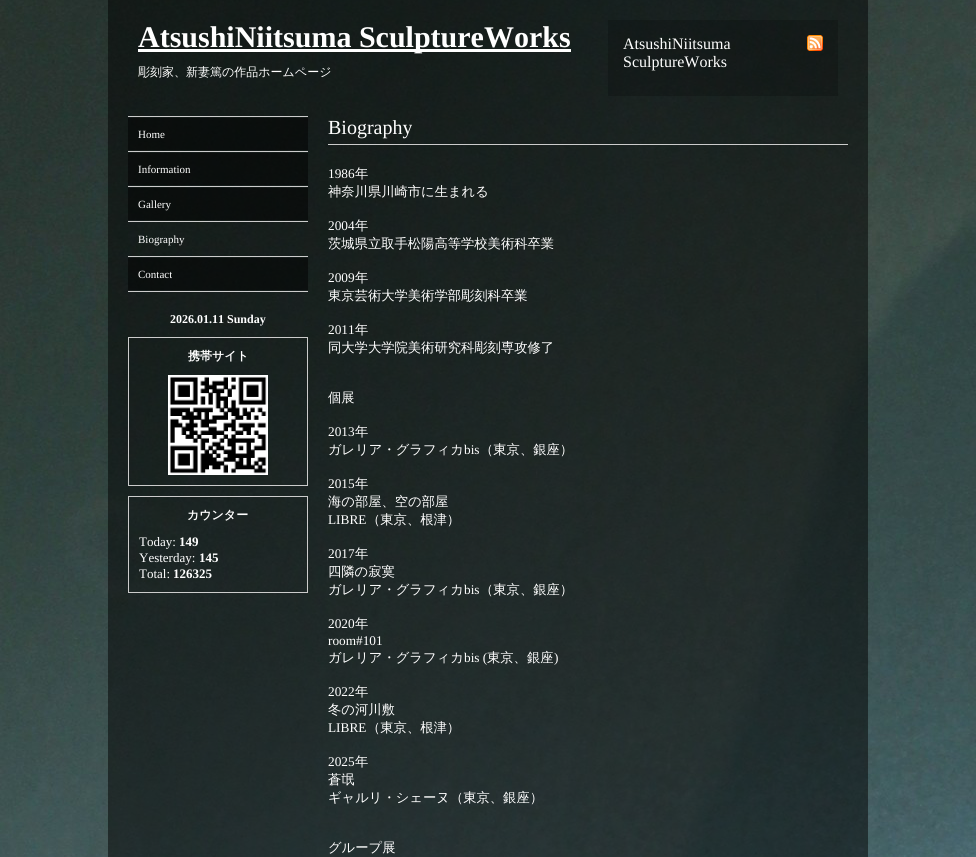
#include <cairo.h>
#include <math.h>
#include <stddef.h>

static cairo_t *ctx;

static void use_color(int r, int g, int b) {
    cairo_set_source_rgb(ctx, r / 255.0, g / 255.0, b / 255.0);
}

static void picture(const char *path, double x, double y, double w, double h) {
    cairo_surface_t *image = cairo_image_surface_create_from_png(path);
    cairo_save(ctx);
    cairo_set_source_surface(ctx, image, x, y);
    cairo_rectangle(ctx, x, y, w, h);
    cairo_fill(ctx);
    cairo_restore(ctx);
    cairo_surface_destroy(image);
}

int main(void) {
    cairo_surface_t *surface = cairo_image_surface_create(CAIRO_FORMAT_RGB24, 976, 857);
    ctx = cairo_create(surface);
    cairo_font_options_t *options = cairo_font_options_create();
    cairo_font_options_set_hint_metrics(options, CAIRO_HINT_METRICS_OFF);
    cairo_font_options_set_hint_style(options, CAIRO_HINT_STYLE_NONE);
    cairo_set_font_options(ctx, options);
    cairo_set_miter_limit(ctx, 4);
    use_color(255, 255, 255);
    cairo_paint(ctx);
    picture("img1.png", 0, 0, 976, 857);
    cairo_set_source_rgba(ctx, 0, 0, 0, 0.5);
    cairo_rectangle(ctx, 108, 0, 760, 857);
    cairo_fill(ctx);
    use_color(255, 255, 255);
    cairo_rectangle(ctx, 138, 49, 433, 3);
    cairo_fill(ctx);
    cairo_select_font_face(ctx, "Liberation Serif", CAIRO_FONT_SLANT_NORMAL, CAIRO_FONT_WEIGHT_BOLD);
    cairo_set_font_size(ctx, 30);
    cairo_move_to(ctx, 138, 47);
    cairo_show_text(ctx, "AtsushiNiitsuma SculptureWorks");
    cairo_select_font_face(ctx, "WenQuanYi Zen Hei Medium", CAIRO_FONT_SLANT_NORMAL, CAIRO_FONT_WEIGHT_NORMAL);
    cairo_set_font_size(ctx, 12);
    cairo_move_to(ctx, 138, 76);
    cairo_show_text(ctx, "彫刻家、新妻篤の作品ホームページ");
    cairo_set_source_rgba(ctx, 0, 0, 0, 0.2);
    cairo_rectangle(ctx, 608, 20, 230, 76);
    cairo_fill(ctx);
    cairo_select_font_face(ctx, "Liberation Serif", CAIRO_FONT_SLANT_NORMAL, CAIRO_FONT_WEIGHT_NORMAL);
    cairo_set_font_size(ctx, 16);
    use_color(255, 255, 255);
    cairo_move_to(ctx, 623, 49);
    cairo_show_text(ctx, "AtsushiNiitsuma");
    cairo_move_to(ctx, 623, 67);
    cairo_show_text(ctx, "SculptureWorks");
    picture("img2.png", 807, 35, 16, 16);
    use_color(204, 204, 204);
    cairo_rectangle(ctx, 128, 116, 180, 1);
    cairo_fill(ctx);
    cairo_rectangle(ctx, 128, 151, 180, 1);
    cairo_fill(ctx);
    cairo_set_source_rgba(ctx, 0, 0, 0, 0.5);
    cairo_rectangle(ctx, 128, 118, 180, 32);
    cairo_fill(ctx);
    cairo_set_font_size(ctx, 11);
    use_color(255, 255, 255);
    cairo_move_to(ctx, 138, 138);
    cairo_show_text(ctx, "Home");
    use_color(204, 204, 204);
    cairo_rectangle(ctx, 128, 186, 180, 1);
    cairo_fill(ctx);
    cairo_set_source_rgba(ctx, 0, 0, 0, 0.5);
    cairo_rectangle(ctx, 128, 153, 180, 32);
    cairo_fill(ctx);
    use_color(255, 255, 255);
    cairo_move_to(ctx, 138, 173);
    cairo_show_text(ctx, "Information");
    use_color(204, 204, 204);
    cairo_rectangle(ctx, 128, 221, 180, 1);
    cairo_fill(ctx);
    cairo_set_source_rgba(ctx, 0, 0, 0, 0.5);
    cairo_rectangle(ctx, 128, 188, 180, 32);
    cairo_fill(ctx);
    use_color(255, 255, 255);
    cairo_move_to(ctx, 138, 208);
    cairo_show_text(ctx, "Gallery");
    use_color(204, 204, 204);
    cairo_rectangle(ctx, 128, 256, 180, 1);
    cairo_fill(ctx);
    use_color(255, 255, 255);
    cairo_move_to(ctx, 138, 243);
    cairo_show_text(ctx, "Biography");
    use_color(204, 204, 204);
    cairo_rectangle(ctx, 128, 291, 180, 1);
    cairo_fill(ctx);
    cairo_set_source_rgba(ctx, 0, 0, 0, 0.5);
    cairo_rectangle(ctx, 128, 258, 180, 32);
    cairo_fill(ctx);
    use_color(255, 255, 255);
    cairo_move_to(ctx, 138, 278);
    cairo_show_text(ctx, "Contact");
    use_color(204, 204, 204);
    cairo_rectangle(ctx, 328, 144, 520, 1);
    cairo_fill(ctx);
    cairo_set_font_size(ctx, 20);
    use_color(255, 255, 255);
    cairo_move_to(ctx, 328, 134);
    cairo_show_text(ctx, "Biography");
    cairo_set_font_size(ctx, 13.3);
    cairo_move_to(ctx, 328, 178);
    cairo_show_text(ctx, "1986");
    cairo_select_font_face(ctx, "WenQuanYi Zen Hei Medium", CAIRO_FONT_SLANT_NORMAL, CAIRO_FONT_WEIGHT_NORMAL);
    cairo_move_to(ctx, 355, 178);
    cairo_show_text(ctx, "年");
    cairo_move_to(ctx, 328, 196);
    cairo_show_text(ctx, "神奈川県川崎市に生まれる");
    cairo_select_font_face(ctx, "Liberation Serif", CAIRO_FONT_SLANT_NORMAL, CAIRO_FONT_WEIGHT_NORMAL);
    cairo_move_to(ctx, 328, 230);
    cairo_show_text(ctx, "2004");
    cairo_select_font_face(ctx, "WenQuanYi Zen Hei Medium", CAIRO_FONT_SLANT_NORMAL, CAIRO_FONT_WEIGHT_NORMAL);
    cairo_move_to(ctx, 355, 230);
    cairo_show_text(ctx, "年");
    cairo_move_to(ctx, 328, 248);
    cairo_show_text(ctx, "茨城県立取手松陽高等学校美術科卒業");
    cairo_select_font_face(ctx, "Liberation Serif", CAIRO_FONT_SLANT_NORMAL, CAIRO_FONT_WEIGHT_NORMAL);
    cairo_move_to(ctx, 328, 282);
    cairo_show_text(ctx, "2009");
    cairo_select_font_face(ctx, "WenQuanYi Zen Hei Medium", CAIRO_FONT_SLANT_NORMAL, CAIRO_FONT_WEIGHT_NORMAL);
    cairo_move_to(ctx, 355, 282);
    cairo_show_text(ctx, "年");
    cairo_move_to(ctx, 328, 300);
    cairo_show_text(ctx, "東京芸術大学美術学部彫刻科卒業");
    cairo_select_font_face(ctx, "Liberation Serif", CAIRO_FONT_SLANT_NORMAL, CAIRO_FONT_WEIGHT_NORMAL);
    cairo_move_to(ctx, 328, 334);
    cairo_show_text(ctx, "2011");
    cairo_select_font_face(ctx, "WenQuanYi Zen Hei Medium", CAIRO_FONT_SLANT_NORMAL, CAIRO_FONT_WEIGHT_NORMAL);
    cairo_move_to(ctx, 355, 334);
    cairo_show_text(ctx, "年");
    cairo_move_to(ctx, 328, 352);
    cairo_show_text(ctx, "同大学大学院美術研究科彫刻専攻修了");
    cairo_move_to(ctx, 328, 402);
    cairo_show_text(ctx, "個展");
    cairo_select_font_face(ctx, "Liberation Serif", CAIRO_FONT_SLANT_NORMAL, CAIRO_FONT_WEIGHT_NORMAL);
    cairo_move_to(ctx, 328, 436);
    cairo_show_text(ctx, "2013");
    cairo_select_font_face(ctx, "WenQuanYi Zen Hei Medium", CAIRO_FONT_SLANT_NORMAL, CAIRO_FONT_WEIGHT_NORMAL);
    cairo_move_to(ctx, 355, 436);
    cairo_show_text(ctx, "年");
    cairo_move_to(ctx, 328, 454);
    cairo_show_text(ctx, "ガレリア・グラフィカ");
    cairo_select_font_face(ctx, "Liberation Serif", CAIRO_FONT_SLANT_NORMAL, CAIRO_FONT_WEIGHT_NORMAL);
    cairo_move_to(ctx, 464, 454);
    cairo_show_text(ctx, "bis");
    cairo_select_font_face(ctx, "WenQuanYi Zen Hei Medium", CAIRO_FONT_SLANT_NORMAL, CAIRO_FONT_WEIGHT_NORMAL);
    cairo_move_to(ctx, 480, 454);
    cairo_show_text(ctx, "（東京、銀座）");
    cairo_select_font_face(ctx, "Liberation Serif", CAIRO_FONT_SLANT_NORMAL, CAIRO_FONT_WEIGHT_NORMAL);
    cairo_move_to(ctx, 328, 488);
    cairo_show_text(ctx, "2015");
    cairo_select_font_face(ctx, "WenQuanYi Zen Hei Medium", CAIRO_FONT_SLANT_NORMAL, CAIRO_FONT_WEIGHT_NORMAL);
    cairo_move_to(ctx, 355, 488);
    cairo_show_text(ctx, "年");
    cairo_move_to(ctx, 328, 506);
    cairo_show_text(ctx, "海の部屋、空の部屋");
    cairo_select_font_face(ctx, "Liberation Serif", CAIRO_FONT_SLANT_NORMAL, CAIRO_FONT_WEIGHT_NORMAL);
    cairo_move_to(ctx, 328, 524);
    cairo_show_text(ctx, "LIBRE");
    cairo_select_font_face(ctx, "WenQuanYi Zen Hei Medium", CAIRO_FONT_SLANT_NORMAL, CAIRO_FONT_WEIGHT_NORMAL);
    cairo_move_to(ctx, 367, 524);
    cairo_show_text(ctx, "（東京、根津）");
    cairo_select_font_face(ctx, "Liberation Serif", CAIRO_FONT_SLANT_NORMAL, CAIRO_FONT_WEIGHT_NORMAL);
    cairo_move_to(ctx, 328, 558);
    cairo_show_text(ctx, "2017");
    cairo_select_font_face(ctx, "WenQuanYi Zen Hei Medium", CAIRO_FONT_SLANT_NORMAL, CAIRO_FONT_WEIGHT_NORMAL);
    cairo_move_to(ctx, 355, 558);
    cairo_show_text(ctx, "年");
    cairo_move_to(ctx, 328, 576);
    cairo_show_text(ctx, "四隣の寂寞");
    cairo_move_to(ctx, 328, 594);
    cairo_show_text(ctx, "ガレリア・グラフィカ");
    cairo_select_font_face(ctx, "Liberation Serif", CAIRO_FONT_SLANT_NORMAL, CAIRO_FONT_WEIGHT_NORMAL);
    cairo_move_to(ctx, 464, 594);
    cairo_show_text(ctx, "bis");
    cairo_select_font_face(ctx, "WenQuanYi Zen Hei Medium", CAIRO_FONT_SLANT_NORMAL, CAIRO_FONT_WEIGHT_NORMAL);
    cairo_move_to(ctx, 480, 594);
    cairo_show_text(ctx, "（東京、銀座）");
    cairo_select_font_face(ctx, "Liberation Serif", CAIRO_FONT_SLANT_NORMAL, CAIRO_FONT_WEIGHT_NORMAL);
    cairo_move_to(ctx, 328, 628);
    cairo_show_text(ctx, "2020");
    cairo_select_font_face(ctx, "WenQuanYi Zen Hei Medium", CAIRO_FONT_SLANT_NORMAL, CAIRO_FONT_WEIGHT_NORMAL);
    cairo_move_to(ctx, 355, 628);
    cairo_show_text(ctx, "年");
    cairo_select_font_face(ctx, "Liberation Serif", CAIRO_FONT_SLANT_NORMAL, CAIRO_FONT_WEIGHT_NORMAL);
    cairo_move_to(ctx, 328, 645);
    cairo_show_text(ctx, "room#101");
    cairo_select_font_face(ctx, "WenQuanYi Zen Hei Medium", CAIRO_FONT_SLANT_NORMAL, CAIRO_FONT_WEIGHT_NORMAL);
    cairo_move_to(ctx, 328, 662);
    cairo_show_text(ctx, "ガレリア・グラフィカ");
    cairo_select_font_face(ctx, "Liberation Serif", CAIRO_FONT_SLANT_NORMAL, CAIRO_FONT_WEIGHT_NORMAL);
    cairo_move_to(ctx, 464, 662);
    cairo_show_text(ctx, "bis (");
    cairo_select_font_face(ctx, "WenQuanYi Zen Hei Medium", CAIRO_FONT_SLANT_NORMAL, CAIRO_FONT_WEIGHT_NORMAL);
    cairo_move_to(ctx, 487, 662);
    cairo_show_text(ctx, "東京、銀座");
    cairo_select_font_face(ctx, "Liberation Serif", CAIRO_FONT_SLANT_NORMAL, CAIRO_FONT_WEIGHT_NORMAL);
    cairo_move_to(ctx, 554, 662);
    cairo_show_text(ctx, ")");
    cairo_move_to(ctx, 328, 696);
    cairo_show_text(ctx, "2022");
    cairo_select_font_face(ctx, "WenQuanYi Zen Hei Medium", CAIRO_FONT_SLANT_NORMAL, CAIRO_FONT_WEIGHT_NORMAL);
    cairo_move_to(ctx, 355, 696);
    cairo_show_text(ctx, "年");
    cairo_move_to(ctx, 328, 714);
    cairo_show_text(ctx, "冬の河川敷");
    cairo_select_font_face(ctx, "Liberation Serif", CAIRO_FONT_SLANT_NORMAL, CAIRO_FONT_WEIGHT_NORMAL);
    cairo_move_to(ctx, 328, 732);
    cairo_show_text(ctx, "LIBRE");
    cairo_select_font_face(ctx, "WenQuanYi Zen Hei Medium", CAIRO_FONT_SLANT_NORMAL, CAIRO_FONT_WEIGHT_NORMAL);
    cairo_move_to(ctx, 367, 732);
    cairo_show_text(ctx, "（東京、根津）");
    cairo_select_font_face(ctx, "Liberation Serif", CAIRO_FONT_SLANT_NORMAL, CAIRO_FONT_WEIGHT_NORMAL);
    cairo_move_to(ctx, 328, 766);
    cairo_show_text(ctx, "2025");
    cairo_select_font_face(ctx, "WenQuanYi Zen Hei Medium", CAIRO_FONT_SLANT_NORMAL, CAIRO_FONT_WEIGHT_NORMAL);
    cairo_move_to(ctx, 355, 766);
    cairo_show_text(ctx, "年");
    cairo_move_to(ctx, 328, 784);
    cairo_show_text(ctx, "蒼氓");
    cairo_move_to(ctx, 328, 802);
    cairo_show_text(ctx, "ギャルリ・シェーヌ（東京、銀座）");
    cairo_move_to(ctx, 328, 852);
    cairo_show_text(ctx, "グループ展");
    cairo_select_font_face(ctx, "Liberation Serif", CAIRO_FONT_SLANT_NORMAL, CAIRO_FONT_WEIGHT_BOLD);
    cairo_set_font_size(ctx, 12);
    cairo_move_to(ctx, 170, 323);
    cairo_show_text(ctx, "2026.01.11 Sunday");
    cairo_rectangle(ctx, 128.5, 337.5, 179, 148);
    use_color(204, 204, 204);
    cairo_set_line_width(ctx, 1);
    cairo_stroke(ctx);
    cairo_select_font_face(ctx, "WenQuanYi Zen Hei", CAIRO_FONT_SLANT_NORMAL, CAIRO_FONT_WEIGHT_BOLD);
    use_color(255, 255, 255);
    cairo_move_to(ctx, 188, 360);
    cairo_show_text(ctx, "携帯サイト");
    picture("img3.png", 168, 375, 100, 100);
    cairo_rectangle(ctx, 128.5, 496.5, 179, 96);
    use_color(204, 204, 204);
    cairo_stroke(ctx);
    use_color(255, 255, 255);
    cairo_move_to(ctx, 187, 519);
    cairo_show_text(ctx, "カウンター");
    cairo_select_font_face(ctx, "Liberation Serif", CAIRO_FONT_SLANT_NORMAL, CAIRO_FONT_WEIGHT_NORMAL);
    cairo_set_font_size(ctx, 13);
    cairo_move_to(ctx, 139, 546);
    cairo_show_text(ctx, "Today:");
    cairo_select_font_face(ctx, "Liberation Serif", CAIRO_FONT_SLANT_NORMAL, CAIRO_FONT_WEIGHT_BOLD);
    cairo_move_to(ctx, 179, 546);
    cairo_show_text(ctx, "149");
    cairo_select_font_face(ctx, "Liberation Serif", CAIRO_FONT_SLANT_NORMAL, CAIRO_FONT_WEIGHT_NORMAL);
    cairo_move_to(ctx, 139, 562);
    cairo_show_text(ctx, "Yesterday:");
    cairo_select_font_face(ctx, "Liberation Serif", CAIRO_FONT_SLANT_NORMAL, CAIRO_FONT_WEIGHT_BOLD);
    cairo_move_to(ctx, 199, 562);
    cairo_show_text(ctx, "145");
    cairo_select_font_face(ctx, "Liberation Serif", CAIRO_FONT_SLANT_NORMAL, CAIRO_FONT_WEIGHT_NORMAL);
    cairo_move_to(ctx, 139, 578);
    cairo_show_text(ctx, "Total:");
    cairo_select_font_face(ctx, "Liberation Serif", CAIRO_FONT_SLANT_NORMAL, CAIRO_FONT_WEIGHT_BOLD);
    cairo_move_to(ctx, 173, 578);
    cairo_show_text(ctx, "126325");
    cairo_surface_write_to_png(surface, "result.png");
    cairo_font_options_destroy(options);
    cairo_destroy(ctx);
    cairo_surface_destroy(surface);
    return 0;
}
